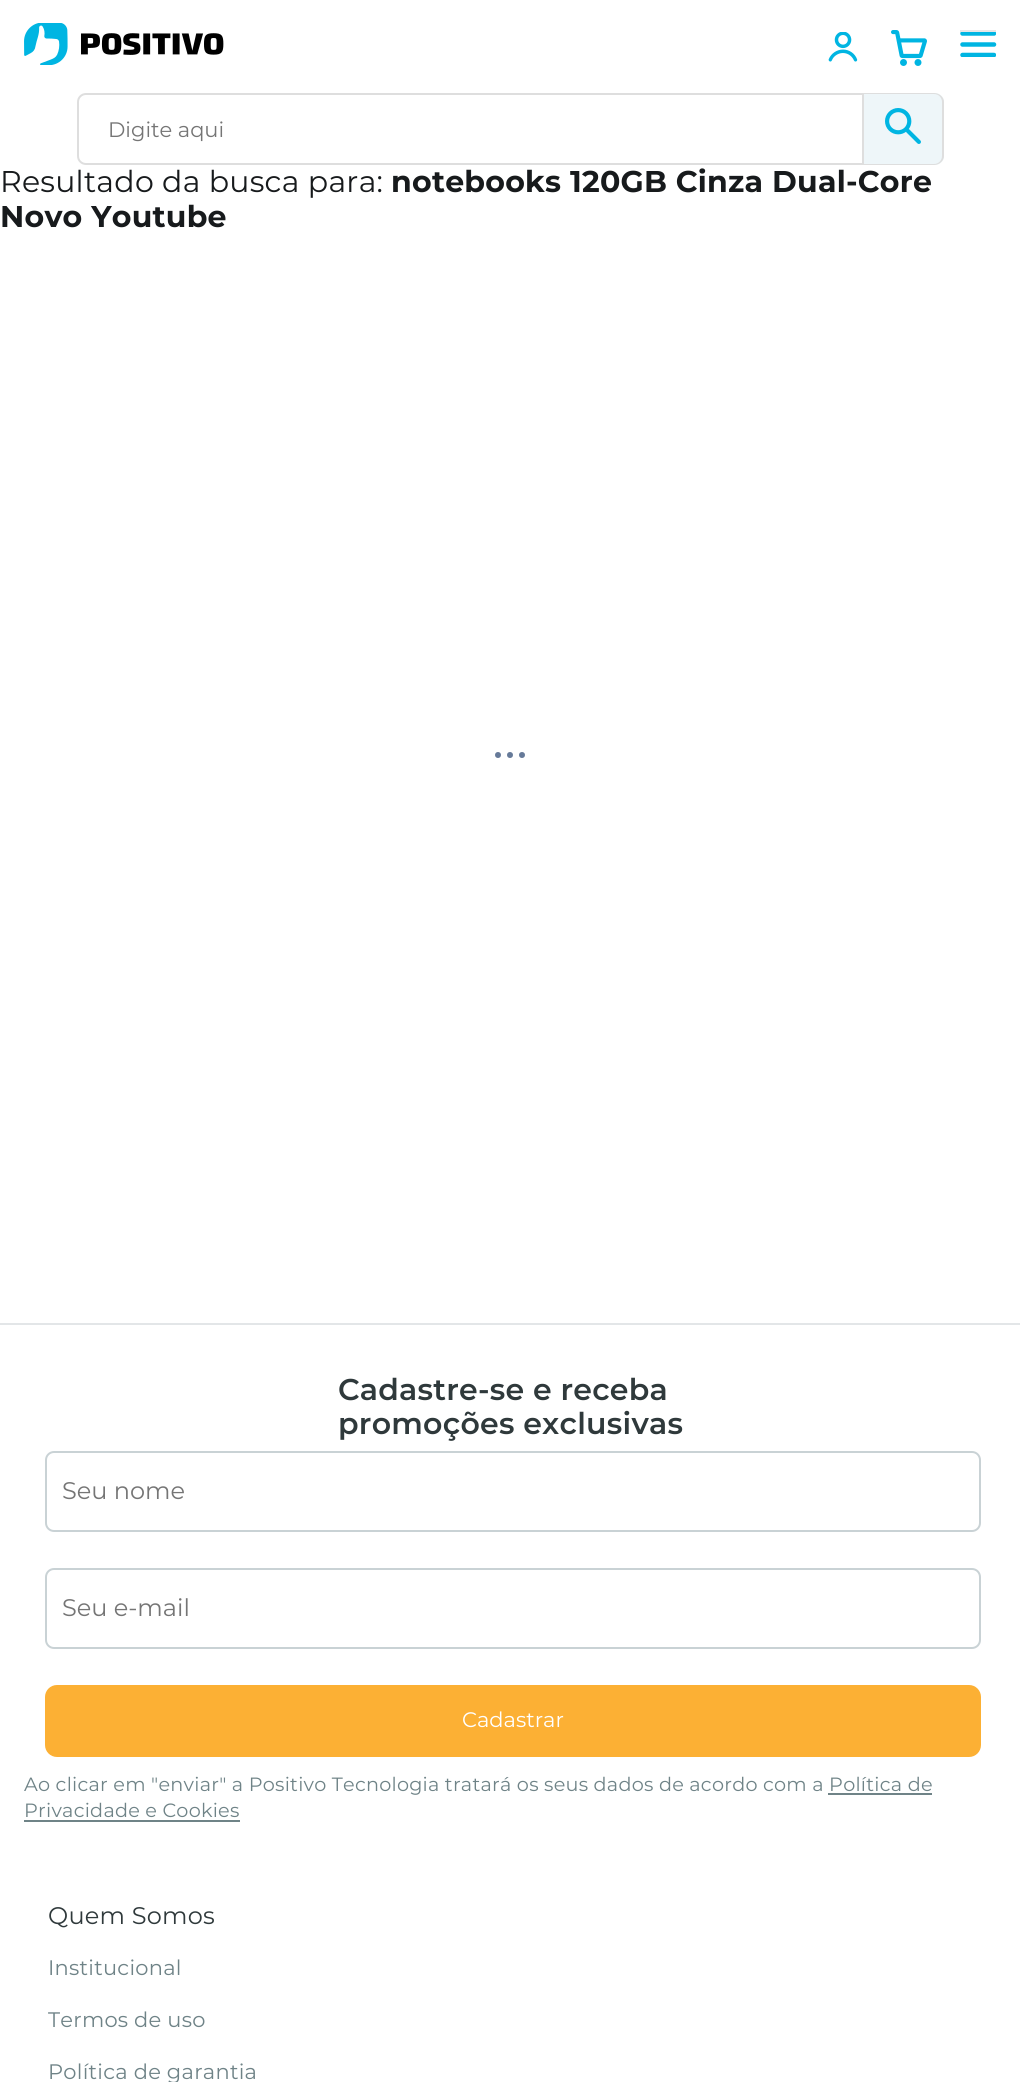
#include <cairo.h>
#include <math.h>
#include <stddef.h>

static cairo_t *ctx;

static void use_color(int r, int g, int b) {
    cairo_set_source_rgb(ctx, r / 255.0, g / 255.0, b / 255.0);
}

static void spaced_text(double x, double y, const char *s, double letter, double word) {
    cairo_move_to(ctx, x, y);
    while (*s) {
        char ch[5] = {0};
        int n = 0;
        do ch[n++] = *s++; while ((*s & 0xC0) == 0x80);
        cairo_show_text(ctx, ch);
        cairo_rel_move_to(ctx, letter + word * (*ch == ' '), 0);
    }
}

static void round_rect(double x, double y, double w, double h, double r) {
    cairo_new_sub_path(ctx);
    cairo_arc(ctx, x + w - r, y + h - r, r, 0, M_PI / 2);
    cairo_arc(ctx, x + r, y + h - r, r, M_PI / 2, M_PI);
    cairo_arc(ctx, x + r, y + r, r, M_PI, 1.5 * M_PI);
    cairo_arc(ctx, x + w - r, y + r, r, 1.5 * M_PI, 2 * M_PI);
    cairo_close_path(ctx);
}

static void picture(const char *path, double x, double y, double w, double h) {
    cairo_surface_t *image = cairo_image_surface_create_from_png(path);
    cairo_save(ctx);
    cairo_set_source_surface(ctx, image, x, y);
    cairo_rectangle(ctx, x, y, w, h);
    cairo_fill(ctx);
    cairo_restore(ctx);
    cairo_surface_destroy(image);
}

int main(void) {
    cairo_surface_t *surface = cairo_image_surface_create(CAIRO_FORMAT_RGB24, 1020, 2082);
    ctx = cairo_create(surface);
    cairo_font_options_t *options = cairo_font_options_create();
    cairo_font_options_set_hint_metrics(options, CAIRO_HINT_METRICS_OFF);
    cairo_font_options_set_hint_style(options, CAIRO_HINT_STYLE_NONE);
    cairo_set_font_options(ctx, options);
    cairo_set_miter_limit(ctx, 4);
    use_color(255, 255, 255);
    cairo_paint(ctx);
    picture("img1.png", 24, 23, 200, 42);
    picture("img2.png", 828, 32, 30, 30);
    picture("img3.png", 891, 30, 36, 36);
    use_color(230, 230, 230);
    cairo_rectangle(ctx, 960, 30, 36, 2);
    cairo_fill(ctx);
    cairo_save(ctx);
    cairo_rectangle(ctx, 960, 32, 36, 25);
    cairo_clip(ctx);
    cairo_new_path(ctx);
    cairo_move_to(ctx, 962.5, 33.5);
    cairo_line_to(ctx, 994, 33.5);
    use_color(0, 181, 226);
    cairo_set_line_width(ctx, 4.5);
    cairo_set_line_cap(ctx, CAIRO_LINE_CAP_ROUND);
    cairo_stroke(ctx);
    cairo_restore(ctx);
    cairo_new_path(ctx);
    cairo_move_to(ctx, 962.5, 44.5);
    cairo_line_to(ctx, 994, 44.5);
    use_color(0, 181, 226);
    cairo_set_line_width(ctx, 4.5);
    cairo_set_line_cap(ctx, CAIRO_LINE_CAP_ROUND);
    cairo_stroke(ctx);
    cairo_save(ctx);
    cairo_rectangle(ctx, 960, 32, 36, 25);
    cairo_clip(ctx);
    cairo_new_path(ctx);
    cairo_move_to(ctx, 962.5, 55);
    cairo_line_to(ctx, 994, 55);
    cairo_stroke(ctx);
    cairo_restore(ctx);
    cairo_new_path(ctx);
    cairo_move_to(ctx, 86, 94);
    cairo_line_to(ctx, 863, 94);
    cairo_line_to(ctx, 863, 164);
    cairo_line_to(ctx, 86, 164);
    cairo_curve_to(ctx, 81.5, 164, 78, 160.5, 78, 156);
    cairo_line_to(ctx, 78, 102);
    cairo_curve_to(ctx, 78, 97.5, 81.5, 94, 86, 94);
    cairo_close_path(ctx);
    use_color(222, 222, 222);
    cairo_set_line_width(ctx, 2);
    cairo_set_line_cap(ctx, CAIRO_LINE_CAP_BUTT);
    cairo_stroke(ctx);
    cairo_select_font_face(ctx, "Montserrat", CAIRO_FONT_SLANT_NORMAL, CAIRO_FONT_WEIGHT_NORMAL);
    cairo_set_font_size(ctx, 21);
    use_color(117, 117, 117);
    cairo_move_to(ctx, 108, 137);
    cairo_show_text(ctx, "Digite aqui");
    use_color(238, 246, 249);
    cairo_new_path(ctx);
    cairo_move_to(ctx, 864, 93);
    cairo_line_to(ctx, 935, 93);
    cairo_curve_to(ctx, 940, 93, 944, 97, 944, 102);
    cairo_line_to(ctx, 944, 156);
    cairo_curve_to(ctx, 944, 161, 940, 165, 935, 165);
    cairo_line_to(ctx, 864, 165);
    cairo_close_path(ctx);
    cairo_fill(ctx);
    use_color(222, 222, 222);
    cairo_set_fill_rule(ctx, CAIRO_FILL_RULE_EVEN_ODD);
    cairo_new_path(ctx);
    cairo_move_to(ctx, 864, 93);
    cairo_line_to(ctx, 934, 93);
    cairo_curve_to(ctx, 939, 93, 944, 97, 944, 102);
    cairo_line_to(ctx, 944, 156);
    cairo_curve_to(ctx, 944, 161, 939, 165, 934, 165);
    cairo_line_to(ctx, 864, 165);
    cairo_close_path(ctx);
    cairo_move_to(ctx, 864, 94);
    cairo_line_to(ctx, 934, 94);
    cairo_curve_to(ctx, 939, 94, 942, 98, 942, 102);
    cairo_line_to(ctx, 942, 156);
    cairo_curve_to(ctx, 942, 160, 939, 164, 934, 164);
    cairo_line_to(ctx, 864, 164);
    cairo_close_path(ctx);
    cairo_fill(ctx);
    picture("img4.png", 885, 108, 36, 36);
    use_color(227, 230, 232);
    cairo_rectangle(ctx, 0, 1323, 1020, 2);
    cairo_fill(ctx);
    cairo_set_font_size(ctx, 30);
    use_color(23, 26, 28);
    spaced_text(0, 192, "Resultado da busca para:", 0.25, 0);
    cairo_select_font_face(ctx, "Montserrat", CAIRO_FONT_SLANT_NORMAL, CAIRO_FONT_WEIGHT_BOLD);
    spaced_text(391, 192, "notebooks 120GB Cinza Dual-Core", 0.25, 0);
    spaced_text(0, 227, "Novo Youtube", 0.25, 0);
    use_color(102, 122, 153);
    cairo_new_path(ctx);
    cairo_arc(ctx, 498, 755, 3, 0, 2 * M_PI);
    cairo_fill(ctx);
    cairo_arc(ctx, 510, 755, 3, 0, 2 * M_PI);
    cairo_fill(ctx);
    cairo_arc(ctx, 522, 755, 3, 0, 2 * M_PI);
    cairo_fill(ctx);
    cairo_select_font_face(ctx, "Montserrat SemiBold", CAIRO_FONT_SLANT_NORMAL, CAIRO_FONT_WEIGHT_NORMAL);
    use_color(47, 57, 59);
    spaced_text(338, 1400, "Cadastre-se e receba", 0.25, 0);
    spaced_text(338, 1434, "promoções exclusivas", 0.25, 0);
    round_rect(46, 1452, 934, 79, 8);
    use_color(201, 210, 213);
    cairo_stroke(ctx);
    cairo_select_font_face(ctx, "Montserrat", CAIRO_FONT_SLANT_NORMAL, CAIRO_FONT_WEIGHT_NORMAL);
    cairo_set_font_size(ctx, 24);
    use_color(117, 117, 117);
    cairo_move_to(ctx, 62, 1499);
    cairo_show_text(ctx, "Seu nome");
    round_rect(46, 1569, 934, 79, 8);
    use_color(201, 210, 213);
    cairo_stroke(ctx);
    use_color(117, 117, 117);
    cairo_move_to(ctx, 62, 1616);
    cairo_show_text(ctx, "Seu e-mail");
    use_color(252, 176, 52);
    round_rect(45, 1685, 936, 72, 12);
    cairo_fill(ctx);
    cairo_set_font_size(ctx, 21);
    use_color(255, 255, 255);
    cairo_move_to(ctx, 462, 1727);
    cairo_show_text(ctx, "Cadastrar");
    cairo_set_font_size(ctx, 19.2);
    use_color(111, 131, 135);
    spaced_text(24, 1791, "Ao clicar em \"enviar\" a Positivo Tecnologia tratará os seus dados de acordo com a Política de", 0.25, 0);
    cairo_rectangle(ctx, 828, 1793, 104, 2);
    cairo_fill(ctx);
    spaced_text(24, 1817, "Privacidade e Cookies", 0.25, 0);
    cairo_rectangle(ctx, 24, 1820, 216, 2);
    cairo_fill(ctx);
    cairo_set_font_size(ctx, 24);
    use_color(47, 57, 59);
    spaced_text(48, 1924, "Quem Somos", 0.25, 0);
    cairo_set_font_size(ctx, 21);
    use_color(111, 131, 135);
    spaced_text(48, 1975, "Institucional", 0.25, 0);
    spaced_text(48, 2027, "Termos de uso", 0.25, 0);
    spaced_text(48, 2079, "Política de garantia", 0.25, 0);
    cairo_surface_write_to_png(surface, "result.png");
    cairo_font_options_destroy(options);
    cairo_destroy(ctx);
    cairo_surface_destroy(surface);
    return 0;
}
